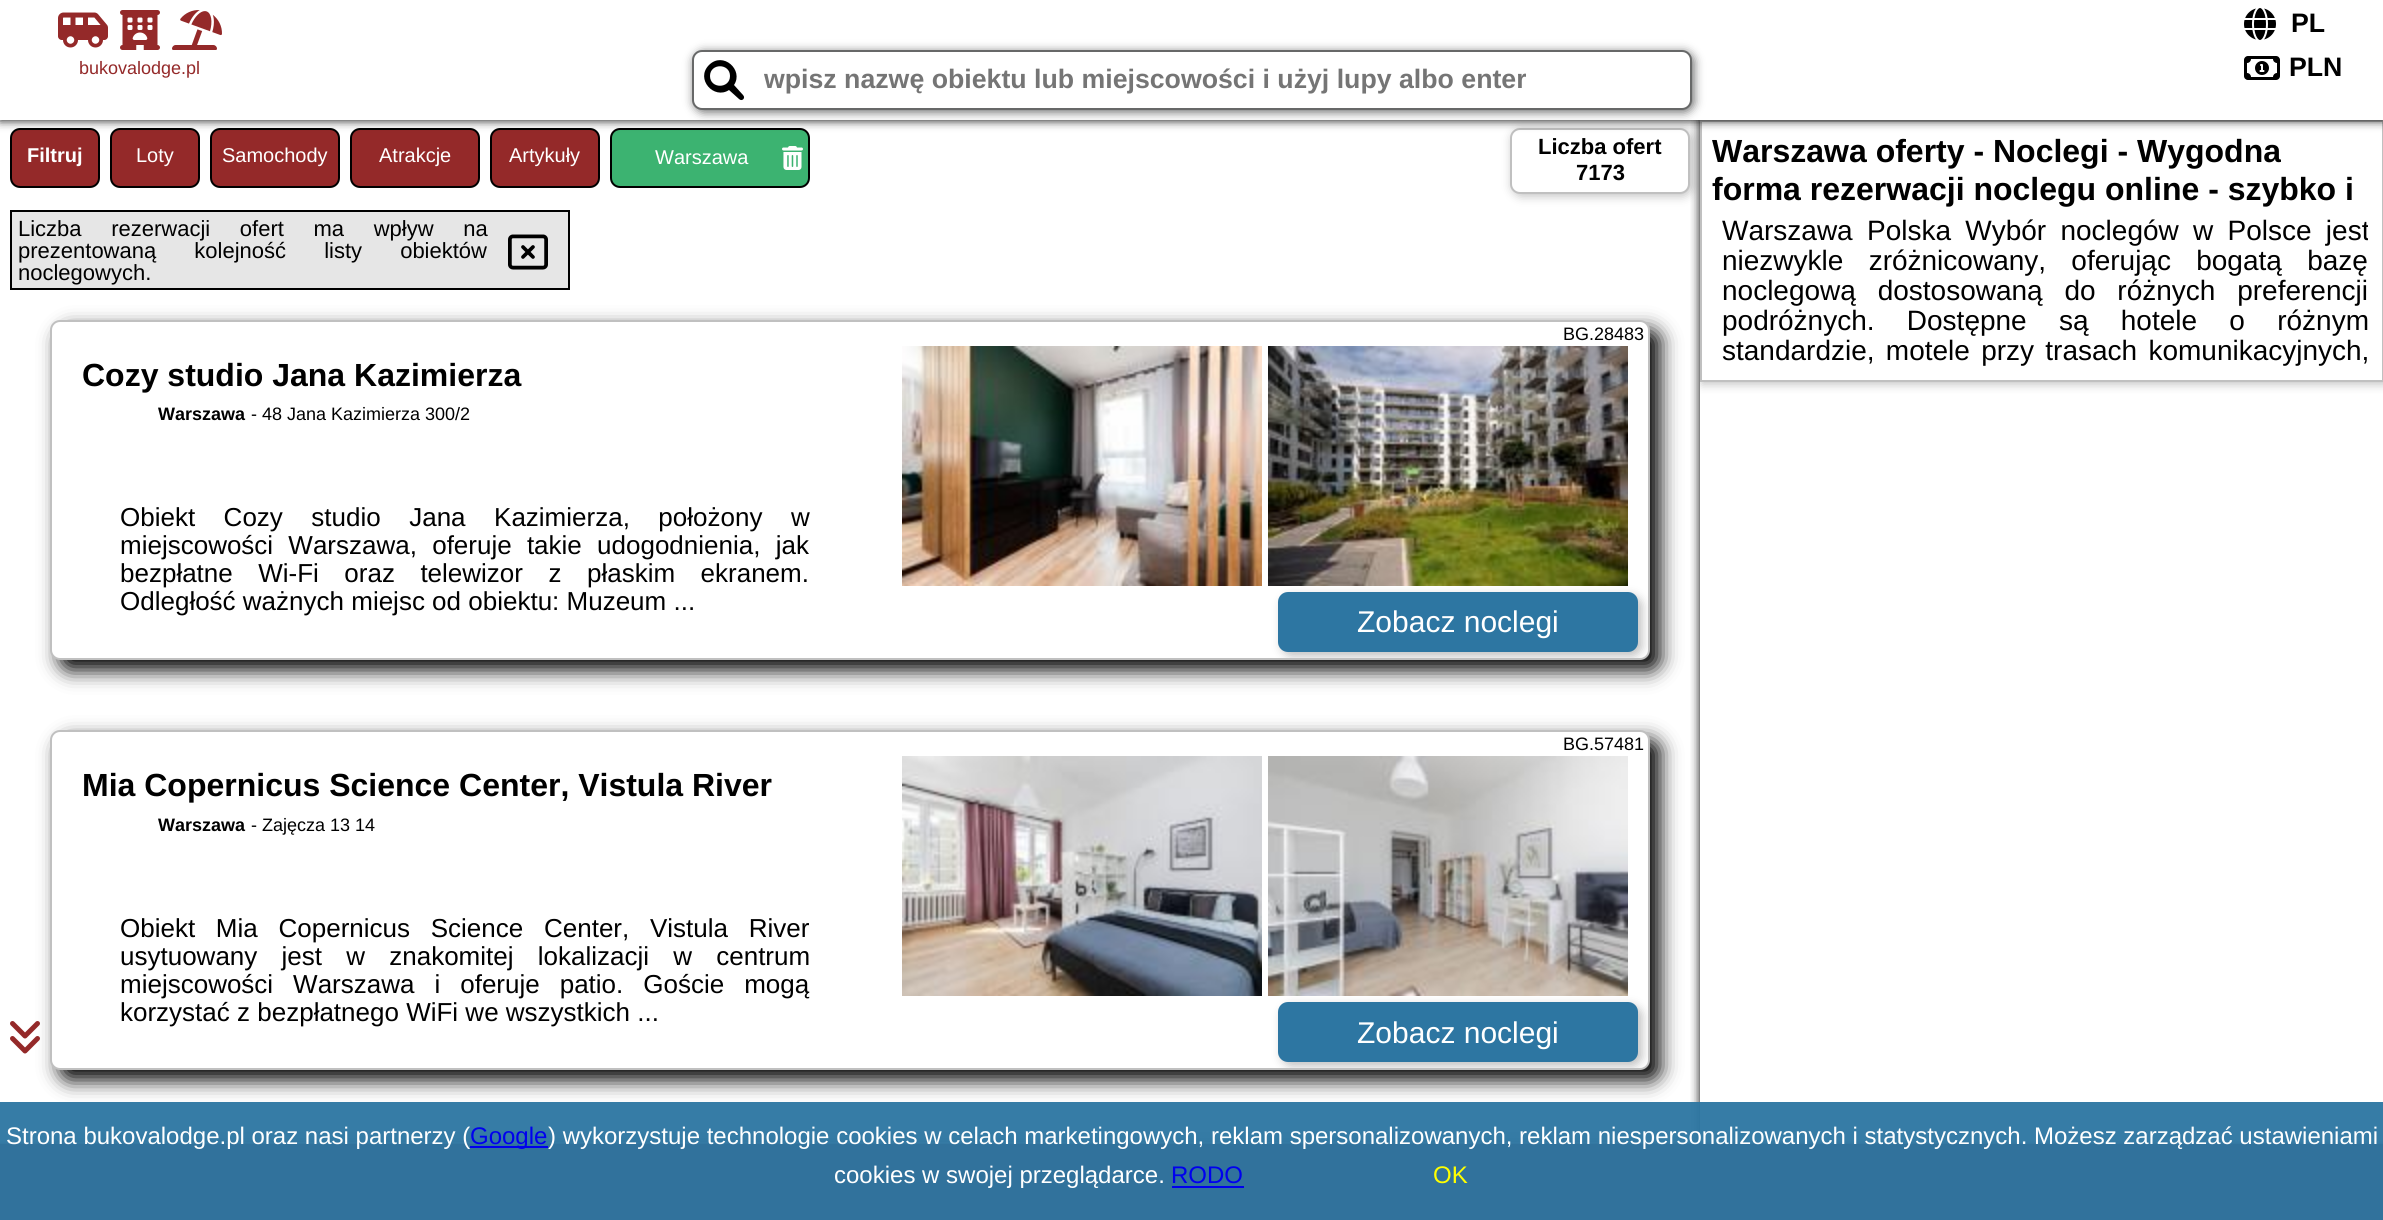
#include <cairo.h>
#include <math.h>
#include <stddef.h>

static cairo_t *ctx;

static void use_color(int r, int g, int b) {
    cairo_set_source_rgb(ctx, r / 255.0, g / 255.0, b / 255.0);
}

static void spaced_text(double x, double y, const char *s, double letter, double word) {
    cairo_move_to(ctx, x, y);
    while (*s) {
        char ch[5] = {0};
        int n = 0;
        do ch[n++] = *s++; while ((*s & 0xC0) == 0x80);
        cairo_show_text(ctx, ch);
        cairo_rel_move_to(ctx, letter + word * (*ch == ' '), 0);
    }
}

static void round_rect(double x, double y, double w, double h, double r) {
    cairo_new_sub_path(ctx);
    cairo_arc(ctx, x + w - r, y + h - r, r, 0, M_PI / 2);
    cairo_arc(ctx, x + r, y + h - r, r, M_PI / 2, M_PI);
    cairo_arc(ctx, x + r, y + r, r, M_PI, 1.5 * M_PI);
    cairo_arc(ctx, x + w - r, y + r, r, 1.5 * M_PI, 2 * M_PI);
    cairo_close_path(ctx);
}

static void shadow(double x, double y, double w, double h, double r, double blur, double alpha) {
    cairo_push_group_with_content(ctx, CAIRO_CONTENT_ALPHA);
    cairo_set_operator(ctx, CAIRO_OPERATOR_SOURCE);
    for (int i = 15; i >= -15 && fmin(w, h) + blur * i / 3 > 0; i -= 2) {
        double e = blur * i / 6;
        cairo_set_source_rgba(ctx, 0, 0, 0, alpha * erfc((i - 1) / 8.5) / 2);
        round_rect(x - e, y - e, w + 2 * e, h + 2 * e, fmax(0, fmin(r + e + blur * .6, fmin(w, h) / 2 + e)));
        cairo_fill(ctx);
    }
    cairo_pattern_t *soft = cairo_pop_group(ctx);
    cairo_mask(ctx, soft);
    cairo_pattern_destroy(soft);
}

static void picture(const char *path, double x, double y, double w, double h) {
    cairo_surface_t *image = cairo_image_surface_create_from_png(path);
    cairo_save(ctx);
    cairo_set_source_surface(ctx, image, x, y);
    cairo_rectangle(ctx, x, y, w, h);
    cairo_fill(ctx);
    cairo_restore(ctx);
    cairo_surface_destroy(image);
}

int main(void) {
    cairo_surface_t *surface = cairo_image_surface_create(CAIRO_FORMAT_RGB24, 2383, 1220);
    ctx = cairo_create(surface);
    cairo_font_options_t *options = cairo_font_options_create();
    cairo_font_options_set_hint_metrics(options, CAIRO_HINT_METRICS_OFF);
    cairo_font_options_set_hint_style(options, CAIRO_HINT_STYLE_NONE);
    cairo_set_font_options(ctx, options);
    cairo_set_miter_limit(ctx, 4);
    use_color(255, 255, 255);
    cairo_paint(ctx);
    use_color(148, 41, 41);
    round_rect(11, 129, 88, 58, 9);
    cairo_fill_preserve(ctx);
    use_color(0, 0, 0);
    cairo_stroke(ctx);
    use_color(148, 41, 41);
    round_rect(111, 129, 88, 58, 9);
    cairo_fill_preserve(ctx);
    use_color(0, 0, 0);
    cairo_stroke(ctx);
    use_color(148, 41, 41);
    round_rect(211, 129, 128, 58, 9);
    cairo_fill_preserve(ctx);
    use_color(0, 0, 0);
    cairo_stroke(ctx);
    use_color(148, 41, 41);
    round_rect(351, 129, 128, 58, 9);
    cairo_fill_preserve(ctx);
    use_color(0, 0, 0);
    cairo_stroke(ctx);
    use_color(148, 41, 41);
    round_rect(491, 129, 108, 58, 9);
    cairo_fill_preserve(ctx);
    use_color(0, 0, 0);
    cairo_stroke(ctx);
    use_color(60, 179, 113);
    round_rect(611, 129, 198, 58, 9);
    cairo_fill_preserve(ctx);
    use_color(0, 0, 0);
    cairo_stroke(ctx);
    use_color(192, 192, 192);
    shadow(1512, 130, 180, 66, 10, 5, 1);
    use_color(255, 255, 255);
    round_rect(1511, 129, 178, 64, 9);
    cairo_fill_preserve(ctx);
    use_color(192, 192, 192);
    cairo_stroke(ctx);
    cairo_save(ctx);
    cairo_rectangle(ctx, 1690, 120, 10, 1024);
    cairo_clip(ctx);
    use_color(0, 0, 0);
    shadow(1700, 120, 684, 1024, 0, 5, 1);
    cairo_restore(ctx);
    cairo_save(ctx);
    cairo_rectangle(ctx, 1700, 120, 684, 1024);
    cairo_clip(ctx);
    cairo_rectangle(ctx, 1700, 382, 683, 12);
    cairo_clip(ctx);
    use_color(192, 192, 192);
    shadow(1702, 122, 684, 262, 0, 5, 1);
    cairo_restore(ctx);
    cairo_rectangle(ctx, 1701, 121, 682, 260);
    cairo_stroke(ctx);
    use_color(0, 0, 0);
    shadow(0, 0, 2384, 120, 0, 5, 1);
    use_color(255, 255, 255);
    cairo_rectangle(ctx, 0, 0, 2383, 120);
    cairo_fill(ctx);
    picture("img1.png", 2244, 8, 32, 32);
    cairo_select_font_face(ctx, "Liberation Sans", CAIRO_FONT_SLANT_NORMAL, CAIRO_FONT_WEIGHT_BOLD);
    cairo_set_font_size(ctx, 26.7);
    use_color(0, 0, 0);
    cairo_move_to(ctx, 2291, 32);
    cairo_show_text(ctx, "PL");
    picture("img2.png", 58, 12, 50, 36);
    picture("img3.png", 120, 10, 40, 40);
    picture("img4.png", 172, 10, 50, 40);
    cairo_select_font_face(ctx, "Liberation Sans", CAIRO_FONT_SLANT_NORMAL, CAIRO_FONT_WEIGHT_NORMAL);
    cairo_set_font_size(ctx, 18);
    use_color(148, 41, 41);
    cairo_move_to(ctx, 79, 74);
    cairo_show_text(ctx, "bukovalodge.pl");
    use_color(103, 104, 104);
    shadow(694, 52, 1000, 60, 10, 5, 1);
    use_color(255, 255, 255);
    round_rect(693, 51, 998, 58, 9);
    cairo_fill_preserve(ctx);
    use_color(103, 104, 104);
    cairo_stroke(ctx);
    use_color(0, 0, 0);
    cairo_new_path(ctx);
    cairo_move_to(ctx, 743, 95);
    cairo_line_to(ctx, 734, 85);
    cairo_curve_to(ctx, 744, 70, 723, 51, 709, 65);
    cairo_curve_to(ctx, 695, 79, 714, 100, 729, 90);
    cairo_line_to(ctx, 739, 99);
    cairo_curve_to(ctx, 742, 102, 746, 98, 743, 95);
    cairo_close_path(ctx);
    cairo_move_to(ctx, 710, 76);
    cairo_curve_to(ctx, 710, 63, 730, 63, 730, 76);
    cairo_curve_to(ctx, 730, 89, 710, 89, 710, 76);
    cairo_close_path(ctx);
    cairo_fill(ctx);
    cairo_select_font_face(ctx, "Liberation Sans", CAIRO_FONT_SLANT_NORMAL, CAIRO_FONT_WEIGHT_BOLD);
    cairo_set_font_size(ctx, 26.7);
    use_color(117, 117, 117);
    cairo_move_to(ctx, 764, 88);
    cairo_show_text(ctx, "wpisz nazwę obiektu lub miejscowości i użyj lupy albo enter");
    picture("img5.png", 2244, 56, 36, 24);
    use_color(0, 0, 0);
    cairo_move_to(ctx, 2289, 76);
    cairo_show_text(ctx, "PLN");
    cairo_set_font_size(ctx, 20);
    use_color(255, 255, 255);
    cairo_move_to(ctx, 27, 162);
    cairo_show_text(ctx, "Filtruj");
    cairo_select_font_face(ctx, "Liberation Sans", CAIRO_FONT_SLANT_NORMAL, CAIRO_FONT_WEIGHT_NORMAL);
    cairo_move_to(ctx, 136, 162);
    cairo_show_text(ctx, "Loty");
    cairo_move_to(ctx, 222, 162);
    cairo_show_text(ctx, "Samochody");
    cairo_move_to(ctx, 379, 162);
    cairo_show_text(ctx, "Atrakcje");
    cairo_move_to(ctx, 509, 162);
    cairo_show_text(ctx, "Artykuły");
    cairo_move_to(ctx, 655, 164);
    cairo_show_text(ctx, "Warszawa");
    picture("img6.png", 782, 146, 21, 24);
    cairo_select_font_face(ctx, "Liberation Sans", CAIRO_FONT_SLANT_NORMAL, CAIRO_FONT_WEIGHT_BOLD);
    cairo_set_font_size(ctx, 22);
    use_color(0, 0, 0);
    cairo_move_to(ctx, 1538, 154);
    cairo_show_text(ctx, "Liczba ofert");
    cairo_move_to(ctx, 1576, 180);
    cairo_show_text(ctx, "7173");
    use_color(230, 230, 230);
    cairo_rectangle(ctx, 11, 211, 558, 78);
    cairo_fill_preserve(ctx);
    use_color(0, 0, 0);
    cairo_stroke(ctx);
    cairo_select_font_face(ctx, "Liberation Sans", CAIRO_FONT_SLANT_NORMAL, CAIRO_FONT_WEIGHT_NORMAL);
    spaced_text(18, 236, "Liczba rezerwacji ofert ma wpływ na", 0, 23.5);
    spaced_text(18, 258, "prezentowaną kolejność listy obiektów", 0, 32);
    picture("img7.png", 508, 234, 40, 36);
    cairo_move_to(ctx, 18, 280);
    cairo_show_text(ctx, "noclegowych.");
    use_color(0, 0, 0);
    shadow(60, 330, 1600, 340, 10, 10, 1);
    use_color(255, 255, 255);
    round_rect(51, 321, 1598, 338, 9);
    cairo_fill_preserve(ctx);
    use_color(192, 192, 192);
    cairo_stroke(ctx);
    cairo_set_font_size(ctx, 18);
    use_color(0, 0, 0);
    cairo_move_to(ctx, 1563, 340);
    cairo_show_text(ctx, "BG.28483");
    cairo_select_font_face(ctx, "Liberation Sans", CAIRO_FONT_SLANT_NORMAL, CAIRO_FONT_WEIGHT_BOLD);
    cairo_set_font_size(ctx, 32);
    cairo_move_to(ctx, 82, 386);
    cairo_show_text(ctx, "Cozy studio Jana Kazimierza");
    cairo_set_font_size(ctx, 18);
    cairo_move_to(ctx, 158, 420);
    cairo_show_text(ctx, "Warszawa");
    cairo_select_font_face(ctx, "Liberation Sans", CAIRO_FONT_SLANT_NORMAL, CAIRO_FONT_WEIGHT_NORMAL);
    cairo_move_to(ctx, 251, 420);
    cairo_show_text(ctx, "- 48 Jana Kazimierza 300/2");
    cairo_set_font_size(ctx, 26);
    spaced_text(120, 526, "Obiekt Cozy studio Jana Kazimierza, położony w", 0, 21.25);
    spaced_text(120, 554, "miejscowości Warszawa, oferuje takie udogodnienia, jak", 0, 8);
    spaced_text(120, 582, "bezpłatne Wi-Fi oraz telewizor z płaskim ekranem.", 0, 18.25);
    cairo_move_to(ctx, 120, 610);
    cairo_show_text(ctx, "Odległość ważnych miejsc od obiektu: Muzeum ...");
    picture("img8.png", 902, 346, 360, 240);
    picture("img9.png", 1268, 346, 360, 240);
    cairo_save(ctx);
    round_rect(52, 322, 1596, 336, 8);
    cairo_clip(ctx);
    use_color(192, 192, 192);
    shadow(1282, 596, 360, 60, 10, 5, 1);
    cairo_restore(ctx);
    use_color(45, 118, 162);
    round_rect(1278, 592, 360, 60, 10);
    cairo_fill(ctx);
    cairo_set_font_size(ctx, 30);
    use_color(255, 255, 255);
    cairo_move_to(ctx, 1357, 632);
    cairo_show_text(ctx, "Zobacz noclegi");
    use_color(0, 0, 0);
    shadow(60, 740, 1600, 340, 10, 10, 1);
    picture("img10.png", 10, 1021, 30, 33);
    use_color(255, 255, 255);
    round_rect(51, 731, 1598, 338, 9);
    cairo_fill_preserve(ctx);
    use_color(192, 192, 192);
    cairo_stroke(ctx);
    cairo_set_font_size(ctx, 18);
    use_color(0, 0, 0);
    cairo_move_to(ctx, 1563, 750);
    cairo_show_text(ctx, "BG.57481");
    cairo_select_font_face(ctx, "Liberation Sans", CAIRO_FONT_SLANT_NORMAL, CAIRO_FONT_WEIGHT_BOLD);
    cairo_set_font_size(ctx, 32);
    cairo_move_to(ctx, 82, 796);
    cairo_show_text(ctx, "Mia Copernicus Science Center, Vistula River");
    cairo_set_font_size(ctx, 18);
    cairo_move_to(ctx, 158, 831);
    cairo_show_text(ctx, "Warszawa");
    cairo_select_font_face(ctx, "Liberation Sans", CAIRO_FONT_SLANT_NORMAL, CAIRO_FONT_WEIGHT_NORMAL);
    cairo_move_to(ctx, 251, 831);
    cairo_show_text(ctx, "- Zajęcza 13 14");
    cairo_set_font_size(ctx, 26);
    spaced_text(120, 937, "Obiekt Mia Copernicus Science Center, Vistula River", 0, 13.5);
    spaced_text(120, 965, "usytuowany jest w znakomitej lokalizacji w centrum", 0, 17);
    spaced_text(120, 993, "miejscowości Warszawa i oferuje patio. Goście mogą", 0, 12.75);
    cairo_move_to(ctx, 120, 1021);
    cairo_show_text(ctx, "korzystać z bezpłatnego WiFi we wszystkich ...");
    picture("img11.png", 902, 756, 360, 240);
    picture("img12.png", 1268, 756, 360, 240);
    cairo_save(ctx);
    round_rect(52, 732, 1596, 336, 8);
    cairo_clip(ctx);
    use_color(192, 192, 192);
    shadow(1282, 1006, 360, 60, 10, 5, 1);
    cairo_restore(ctx);
    use_color(45, 118, 162);
    round_rect(1278, 1002, 360, 60, 10);
    cairo_fill(ctx);
    cairo_set_font_size(ctx, 30);
    use_color(255, 255, 255);
    cairo_move_to(ctx, 1357, 1043);
    cairo_show_text(ctx, "Zobacz noclegi");
    use_color(0, 0, 0);
    shadow(60, 1150, 1600, 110, 10, 10, 1);
    use_color(255, 255, 255);
    cairo_new_path(ctx);
    cairo_move_to(ctx, 60, 1140);
    cairo_line_to(ctx, 1640, 1140);
    cairo_curve_to(ctx, 1645.5, 1140, 1650, 1144.5, 1650, 1150);
    cairo_line_to(ctx, 1650, 1144);
    cairo_line_to(ctx, 50, 1144);
    cairo_line_to(ctx, 50, 1150);
    cairo_curve_to(ctx, 50, 1144.5, 54.5, 1140, 60, 1140);
    cairo_close_path(ctx);
    cairo_fill(ctx);
    round_rect(51, 1141, 1598, 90, 9);
    use_color(192, 192, 192);
    cairo_stroke(ctx);
    cairo_select_font_face(ctx, "Liberation Sans", CAIRO_FONT_SLANT_NORMAL, CAIRO_FONT_WEIGHT_BOLD);
    cairo_set_font_size(ctx, 32);
    use_color(0, 0, 0);
    cairo_move_to(ctx, 1712, 162);
    cairo_show_text(ctx, "Warszawa oferty - Noclegi - Wygodna");
    cairo_move_to(ctx, 1712, 200);
    cairo_show_text(ctx, "forma rezerwacji noclegu online - szybko i");
    cairo_save(ctx);
    cairo_rectangle(ctx, 1722, 216, 646, 150);
    cairo_clip(ctx);
    cairo_select_font_face(ctx, "Liberation Sans", CAIRO_FONT_SLANT_NORMAL, CAIRO_FONT_WEIGHT_NORMAL);
    cairo_set_font_size(ctx, 28);
    spaced_text(1722, 240, "Warszawa Polska Wybór noclegów w Polsce jest", 0, 6.5);
    cairo_restore(ctx);
    cairo_select_font_face(ctx, "Liberation Sans", CAIRO_FONT_SLANT_NORMAL, CAIRO_FONT_WEIGHT_NORMAL);
    cairo_set_font_size(ctx, 28);
    spaced_text(1722, 270, "niezwykle zróżnicowany, oferując bogatą bazę", 0, 17.5);
    spaced_text(1722, 300, "noclegową dostosowaną do różnych preferencji", 0, 14);
    spaced_text(1722, 330, "podróżnych. Dostępne są hotele o różnym", 0, 24.5);
    spaced_text(1722, 360, "standardzie, motele przy trasach komunikacyjnych,", 0, 3.5);
    use_color(148, 41, 41);
    shadow(0, 1144, 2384, 76, 0, 2, 1);
    use_color(148, 41, 41);
    cairo_rectangle(ctx, 0, 1144, 2383, 76);
    cairo_fill(ctx);
    cairo_set_source_rgba(ctx, 0.176, 0.463, 0.635, 0.95);
    cairo_rectangle(ctx, 0, 1102, 2383, 118);
    cairo_fill(ctx);
    cairo_set_font_size(ctx, 24);
    use_color(255, 255, 255);
    cairo_move_to(ctx, 6, 1144);
    cairo_show_text(ctx, "Strona bukovalodge.pl oraz nasi partnerzy (");
    use_color(0, 0, 238);
    cairo_rectangle(ctx, 470, 1146, 78, 2);
    cairo_fill(ctx);
    cairo_move_to(ctx, 470, 1144);
    cairo_show_text(ctx, "Google");
    use_color(255, 255, 255);
    cairo_move_to(ctx, 548, 1144);
    cairo_show_text(ctx, ") wykorzystuje technologie cookies w celach marketingowych, reklam spersonalizowanych, reklam niespersonalizowanych i statystycznych. Możesz zarządzać ustawieniami");
    cairo_move_to(ctx, 834, 1183);
    cairo_show_text(ctx, "cookies w swojej przeglądarce.");
    use_color(0, 0, 238);
    cairo_move_to(ctx, 1171, 1183);
    cairo_show_text(ctx, "RODO");
    cairo_rectangle(ctx, 1172, 1186, 72, 2);
    cairo_fill(ctx);
    use_color(255, 255, 0);
    cairo_move_to(ctx, 1433, 1183);
    cairo_show_text(ctx, "OK");
    cairo_surface_write_to_png(surface, "result.png");
    cairo_font_options_destroy(options);
    cairo_destroy(ctx);
    cairo_surface_destroy(surface);
    return 0;
}
